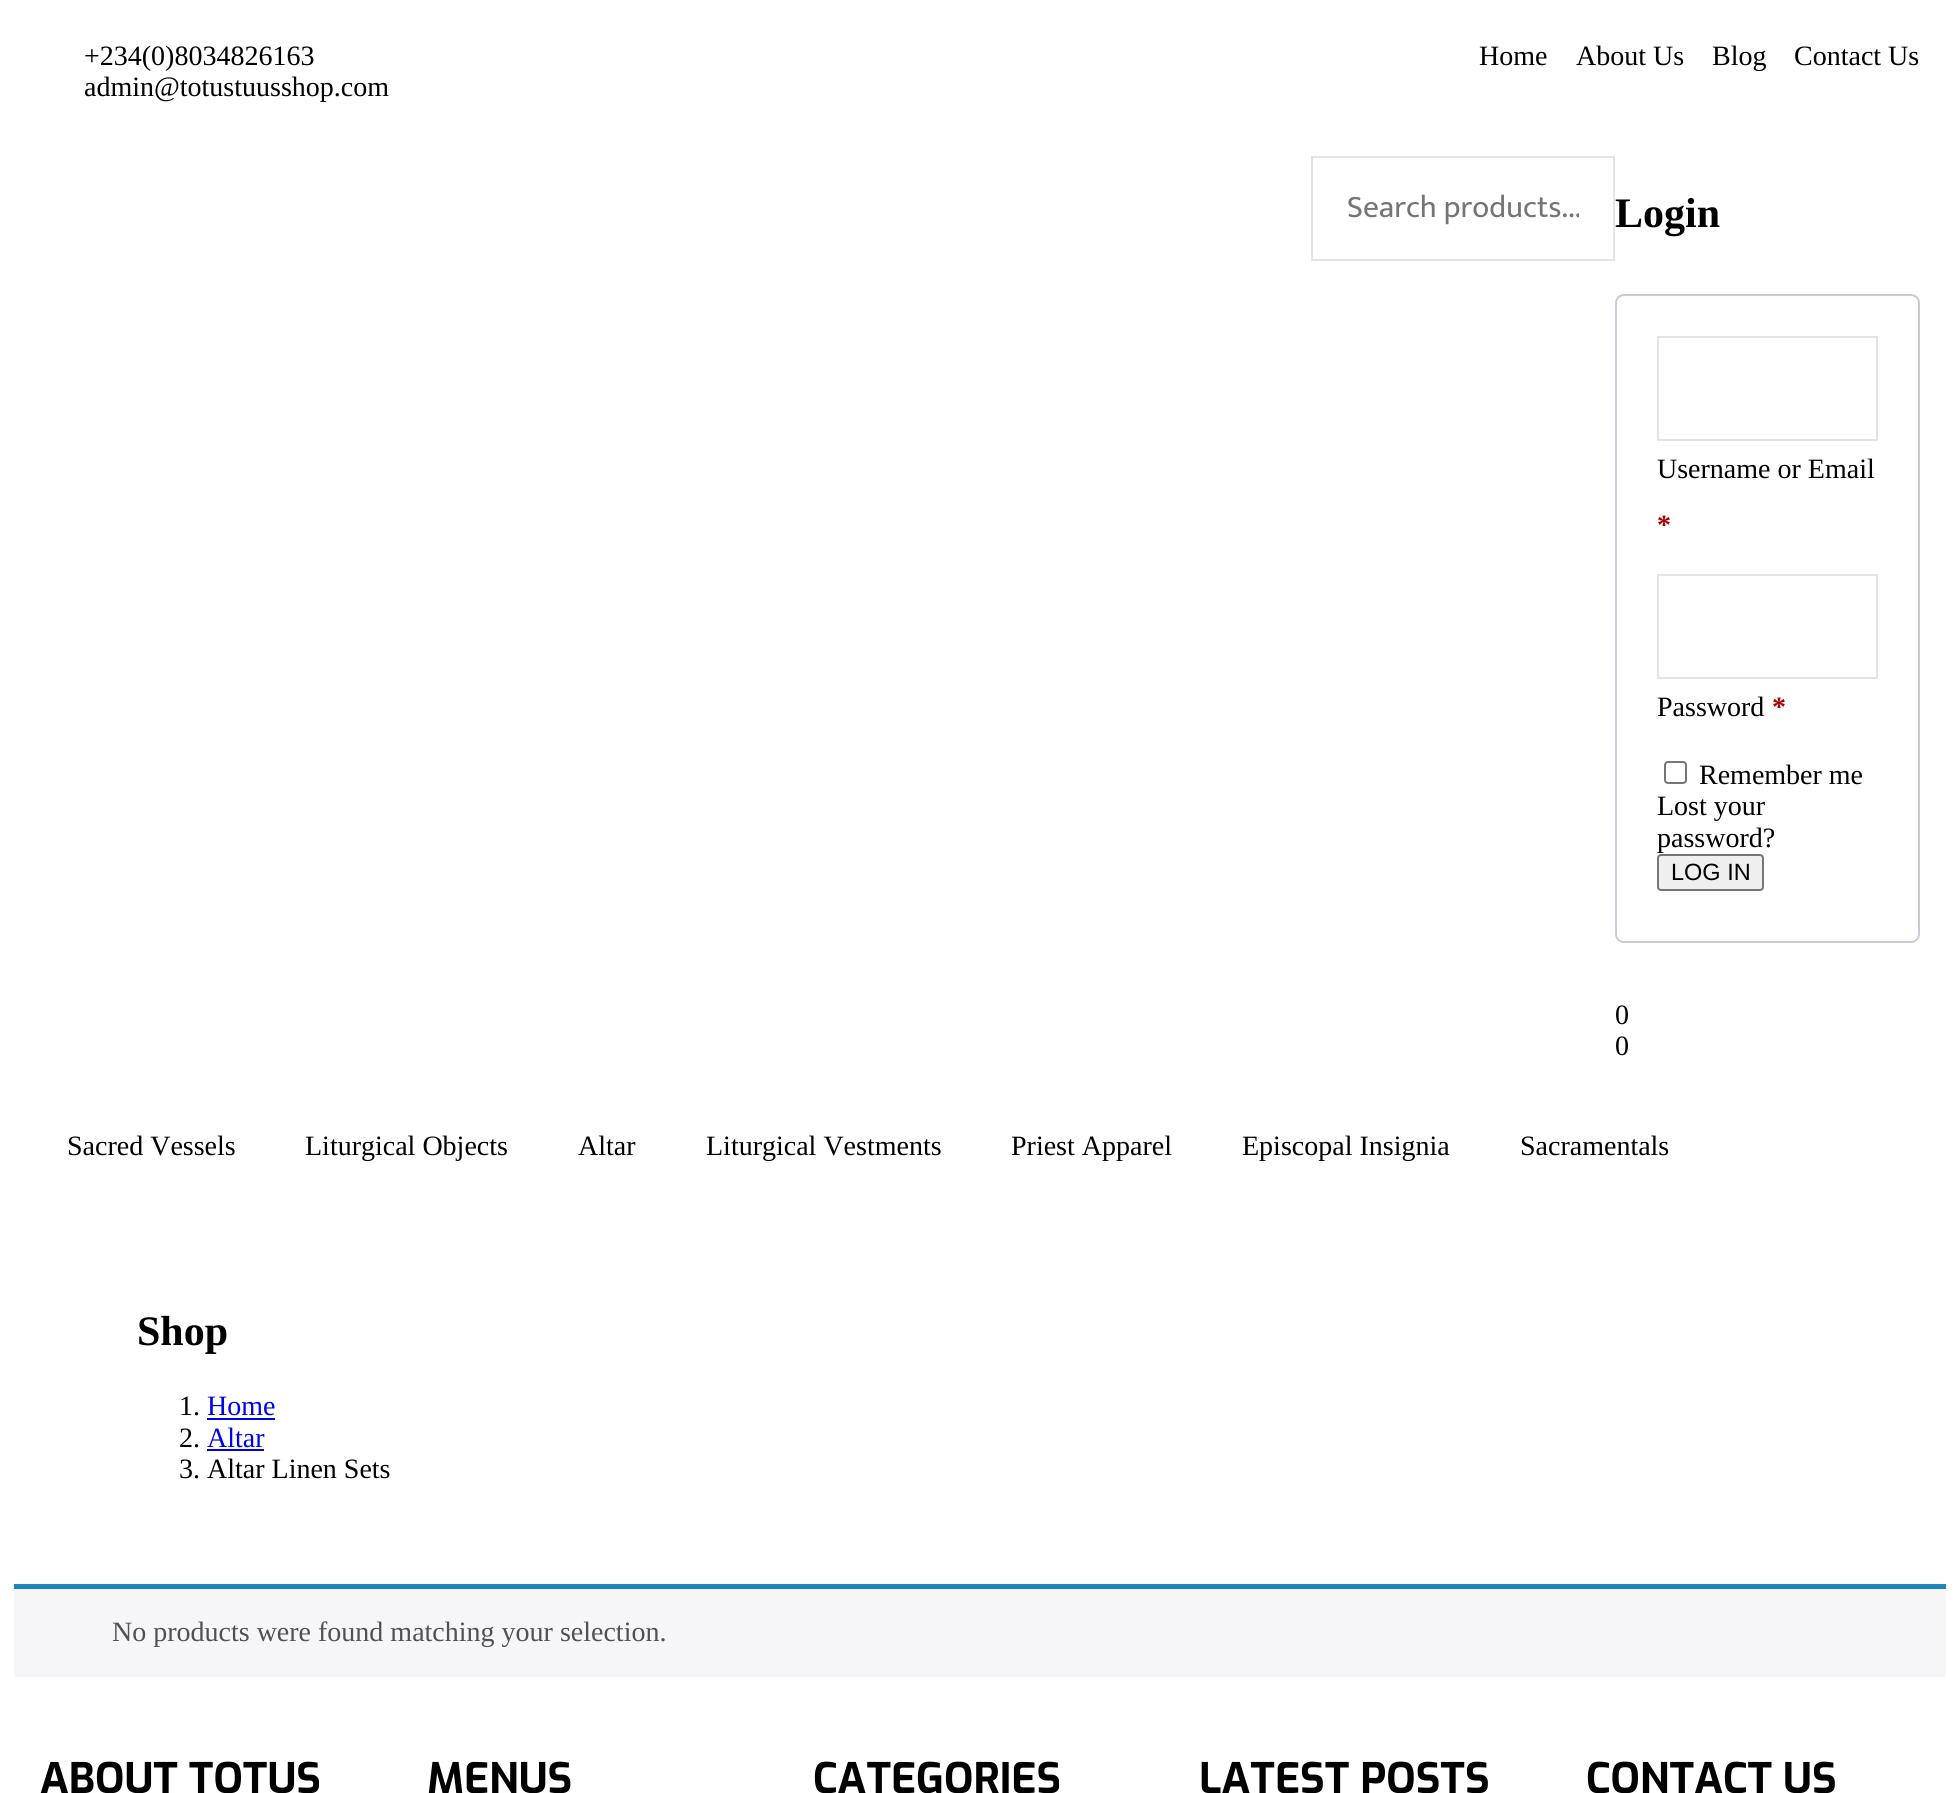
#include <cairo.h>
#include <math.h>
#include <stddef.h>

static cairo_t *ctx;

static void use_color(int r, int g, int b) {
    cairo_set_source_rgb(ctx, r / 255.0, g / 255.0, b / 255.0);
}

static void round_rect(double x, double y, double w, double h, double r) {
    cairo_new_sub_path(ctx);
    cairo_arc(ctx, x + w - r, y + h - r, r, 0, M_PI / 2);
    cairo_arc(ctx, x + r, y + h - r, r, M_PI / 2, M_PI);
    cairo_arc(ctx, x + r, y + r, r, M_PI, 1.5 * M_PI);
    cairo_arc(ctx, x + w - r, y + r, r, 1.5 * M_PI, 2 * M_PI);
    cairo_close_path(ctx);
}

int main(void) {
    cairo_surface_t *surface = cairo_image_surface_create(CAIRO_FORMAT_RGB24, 1960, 1793);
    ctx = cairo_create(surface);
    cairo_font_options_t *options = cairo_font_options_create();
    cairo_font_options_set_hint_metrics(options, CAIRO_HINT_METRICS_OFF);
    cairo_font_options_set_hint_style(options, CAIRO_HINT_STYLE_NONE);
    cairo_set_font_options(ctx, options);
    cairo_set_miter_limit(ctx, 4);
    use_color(255, 255, 255);
    cairo_paint(ctx);
    cairo_select_font_face(ctx, "Liberation Serif", CAIRO_FONT_SLANT_NORMAL, CAIRO_FONT_WEIGHT_NORMAL);
    cairo_set_font_size(ctx, 28);
    use_color(0, 0, 0);
    cairo_move_to(ctx, 84, 65);
    cairo_show_text(ctx, "+234(0)8034826163");
    cairo_move_to(ctx, 84, 96);
    cairo_show_text(ctx, "admin@totustuusshop.com");
    cairo_move_to(ctx, 1479, 65);
    cairo_show_text(ctx, "Home");
    cairo_move_to(ctx, 1576, 65);
    cairo_show_text(ctx, "About Us");
    cairo_move_to(ctx, 1712, 65);
    cairo_show_text(ctx, "Blog");
    cairo_move_to(ctx, 1794, 65);
    cairo_show_text(ctx, "Contact Us");
    cairo_rectangle(ctx, 1312, 157, 302, 103);
    use_color(228, 228, 228);
    cairo_stroke(ctx);
    cairo_save(ctx);
    cairo_rectangle(ctx, 1348, 182, 231, 53);
    cairo_clip(ctx);
    cairo_select_font_face(ctx, "Mukta", CAIRO_FONT_SLANT_NORMAL, CAIRO_FONT_WEIGHT_NORMAL);
    cairo_set_font_size(ctx, 31.5);
    use_color(117, 117, 117);
    cairo_move_to(ctx, 1347, 217);
    cairo_show_text(ctx, "Search products...");
    cairo_restore(ctx);
    cairo_select_font_face(ctx, "Liberation Serif", CAIRO_FONT_SLANT_NORMAL, CAIRO_FONT_WEIGHT_BOLD);
    cairo_set_font_size(ctx, 42);
    use_color(0, 0, 0);
    cairo_move_to(ctx, 1615, 227);
    cairo_show_text(ctx, "Login");
    round_rect(1616, 295, 303, 647, 8);
    use_color(207, 200, 216);
    cairo_stroke(ctx);
    cairo_rectangle(ctx, 1658, 337, 219, 103);
    use_color(228, 228, 228);
    cairo_stroke(ctx);
    cairo_select_font_face(ctx, "Liberation Serif", CAIRO_FONT_SLANT_NORMAL, CAIRO_FONT_WEIGHT_NORMAL);
    cairo_set_font_size(ctx, 28);
    use_color(0, 0, 0);
    cairo_move_to(ctx, 1657, 478);
    cairo_show_text(ctx, "Username or Email");
    cairo_select_font_face(ctx, "Liberation Serif", CAIRO_FONT_SLANT_NORMAL, CAIRO_FONT_WEIGHT_BOLD);
    use_color(170, 0, 0);
    cairo_move_to(ctx, 1657, 534);
    cairo_show_text(ctx, "*");
    cairo_rectangle(ctx, 1658, 575, 219, 103);
    use_color(228, 228, 228);
    cairo_stroke(ctx);
    cairo_select_font_face(ctx, "Liberation Serif", CAIRO_FONT_SLANT_NORMAL, CAIRO_FONT_WEIGHT_NORMAL);
    use_color(0, 0, 0);
    cairo_move_to(ctx, 1657, 716);
    cairo_show_text(ctx, "Password");
    cairo_select_font_face(ctx, "Liberation Serif", CAIRO_FONT_SLANT_NORMAL, CAIRO_FONT_WEIGHT_BOLD);
    use_color(170, 0, 0);
    cairo_move_to(ctx, 1772, 716);
    cairo_show_text(ctx, "*");
    round_rect(1665, 762, 21, 21, 3);
    use_color(118, 118, 118);
    cairo_stroke(ctx);
    cairo_select_font_face(ctx, "Liberation Serif", CAIRO_FONT_SLANT_NORMAL, CAIRO_FONT_WEIGHT_NORMAL);
    use_color(0, 0, 0);
    cairo_move_to(ctx, 1699, 784);
    cairo_show_text(ctx, "Remember me");
    cairo_move_to(ctx, 1657, 815);
    cairo_show_text(ctx, "Lost your");
    cairo_move_to(ctx, 1657, 847);
    cairo_show_text(ctx, "password?");
    use_color(239, 239, 239);
    round_rect(1658, 855, 105, 35, 3);
    cairo_fill_preserve(ctx);
    use_color(118, 118, 118);
    cairo_stroke(ctx);
    cairo_select_font_face(ctx, "Liberation Sans", CAIRO_FONT_SLANT_NORMAL, CAIRO_FONT_WEIGHT_NORMAL);
    cairo_set_font_size(ctx, 23.5);
    use_color(0, 0, 0);
    cairo_move_to(ctx, 1671, 880);
    cairo_show_text(ctx, "LOG IN");
    cairo_select_font_face(ctx, "Liberation Serif", CAIRO_FONT_SLANT_NORMAL, CAIRO_FONT_WEIGHT_NORMAL);
    cairo_set_font_size(ctx, 28);
    cairo_move_to(ctx, 1615, 1024);
    cairo_show_text(ctx, "0");
    cairo_move_to(ctx, 1615, 1055);
    cairo_show_text(ctx, "0");
    cairo_move_to(ctx, 67, 1155);
    cairo_show_text(ctx, "Sacred Vessels");
    cairo_move_to(ctx, 305, 1155);
    cairo_show_text(ctx, "Liturgical Objects");
    cairo_move_to(ctx, 578, 1155);
    cairo_show_text(ctx, "Altar");
    cairo_move_to(ctx, 706, 1155);
    cairo_show_text(ctx, "Liturgical Vestments");
    cairo_move_to(ctx, 1011, 1155);
    cairo_show_text(ctx, "Priest Apparel");
    cairo_move_to(ctx, 1242, 1155);
    cairo_show_text(ctx, "Episcopal Insignia");
    cairo_move_to(ctx, 1520, 1155);
    cairo_show_text(ctx, "Sacramentals");
    cairo_select_font_face(ctx, "Liberation Serif", CAIRO_FONT_SLANT_NORMAL, CAIRO_FONT_WEIGHT_BOLD);
    cairo_set_font_size(ctx, 42);
    cairo_move_to(ctx, 137, 1345);
    cairo_show_text(ctx, "Shop");
    cairo_select_font_face(ctx, "Liberation Serif", CAIRO_FONT_SLANT_NORMAL, CAIRO_FONT_WEIGHT_NORMAL);
    cairo_set_font_size(ctx, 28);
    cairo_move_to(ctx, 179, 1415);
    cairo_show_text(ctx, "1.");
    use_color(0, 0, 238);
    cairo_move_to(ctx, 207, 1415);
    cairo_show_text(ctx, "Home");
    cairo_rectangle(ctx, 207, 1418, 68, 2);
    cairo_fill(ctx);
    use_color(0, 0, 0);
    cairo_move_to(ctx, 179, 1447);
    cairo_show_text(ctx, "2.");
    use_color(0, 0, 238);
    cairo_move_to(ctx, 207, 1447);
    cairo_show_text(ctx, "Altar");
    cairo_rectangle(ctx, 207, 1449, 57, 2);
    cairo_fill(ctx);
    use_color(0, 0, 0);
    cairo_move_to(ctx, 179, 1478);
    cairo_show_text(ctx, "3. Altar Linen Sets");
    use_color(246, 245, 248);
    cairo_rectangle(ctx, 14, 1589, 1932, 88);
    cairo_fill(ctx);
    use_color(30, 133, 190);
    cairo_rectangle(ctx, 14, 1584, 1932, 5);
    cairo_fill(ctx);
    use_color(81, 81, 81);
    cairo_move_to(ctx, 112, 1641);
    cairo_show_text(ctx, "No products were found matching your selection.");
    cairo_select_font_face(ctx, "Exo", CAIRO_FONT_SLANT_NORMAL, CAIRO_FONT_WEIGHT_BOLD);
    cairo_set_font_size(ctx, 42);
    use_color(0, 0, 0);
    cairo_move_to(ctx, 40, 1793);
    cairo_show_text(ctx, "ABOUT TOTUS");
    cairo_move_to(ctx, 427, 1793);
    cairo_show_text(ctx, "MENUS");
    cairo_move_to(ctx, 813, 1793);
    cairo_show_text(ctx, "CATEGORIES");
    cairo_move_to(ctx, 1199, 1793);
    cairo_show_text(ctx, "LATEST POSTS");
    cairo_move_to(ctx, 1586, 1793);
    cairo_show_text(ctx, "CONTACT US");
    cairo_surface_write_to_png(surface, "result.png");
    cairo_font_options_destroy(options);
    cairo_destroy(ctx);
    cairo_surface_destroy(surface);
    return 0;
}
